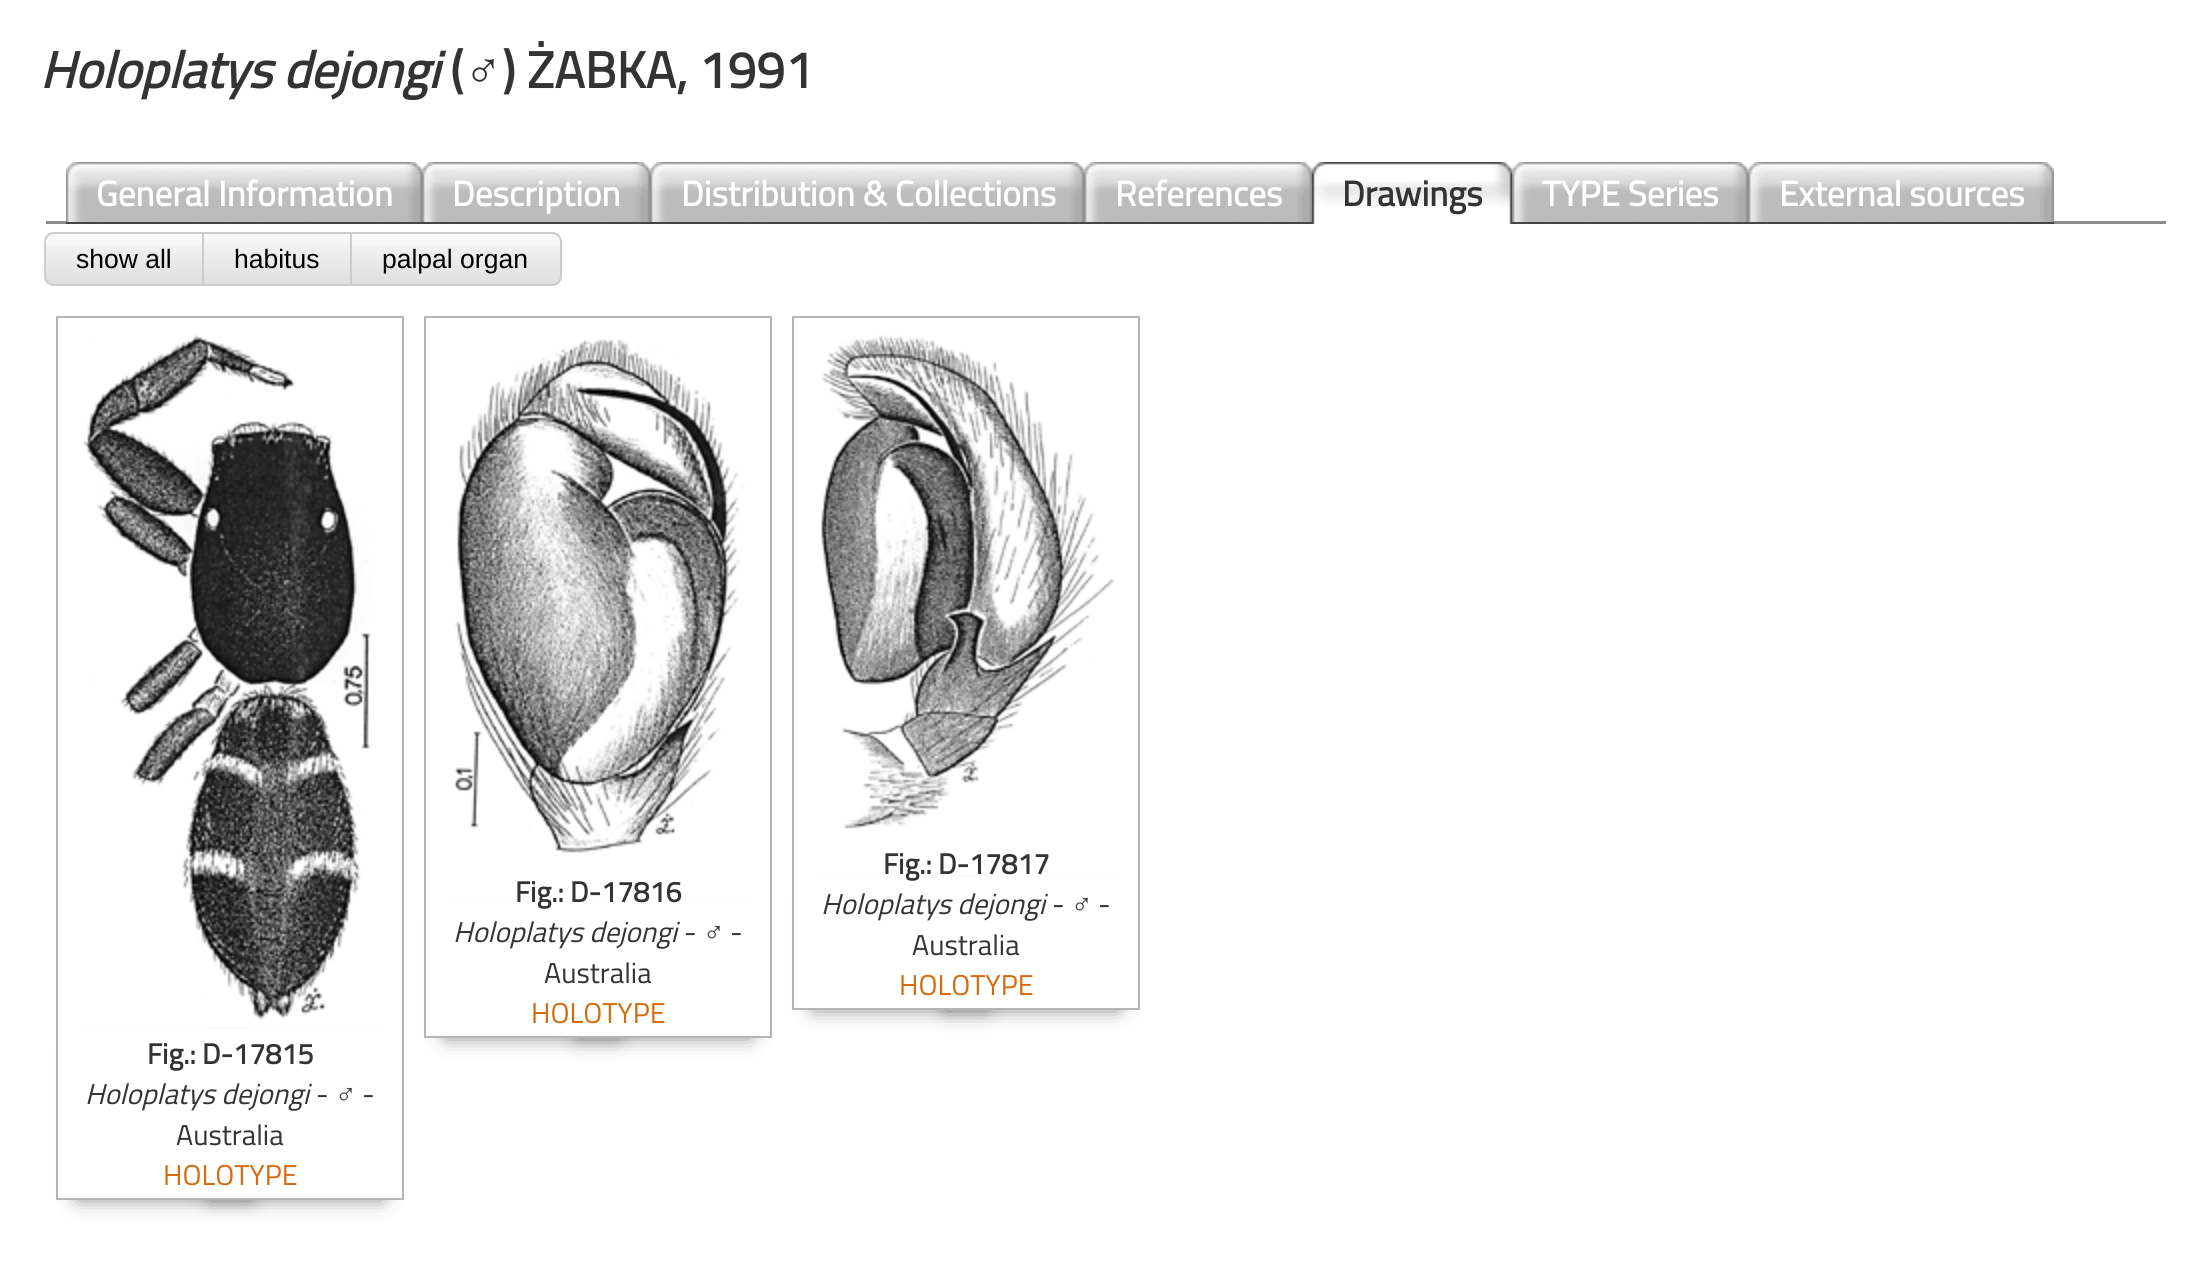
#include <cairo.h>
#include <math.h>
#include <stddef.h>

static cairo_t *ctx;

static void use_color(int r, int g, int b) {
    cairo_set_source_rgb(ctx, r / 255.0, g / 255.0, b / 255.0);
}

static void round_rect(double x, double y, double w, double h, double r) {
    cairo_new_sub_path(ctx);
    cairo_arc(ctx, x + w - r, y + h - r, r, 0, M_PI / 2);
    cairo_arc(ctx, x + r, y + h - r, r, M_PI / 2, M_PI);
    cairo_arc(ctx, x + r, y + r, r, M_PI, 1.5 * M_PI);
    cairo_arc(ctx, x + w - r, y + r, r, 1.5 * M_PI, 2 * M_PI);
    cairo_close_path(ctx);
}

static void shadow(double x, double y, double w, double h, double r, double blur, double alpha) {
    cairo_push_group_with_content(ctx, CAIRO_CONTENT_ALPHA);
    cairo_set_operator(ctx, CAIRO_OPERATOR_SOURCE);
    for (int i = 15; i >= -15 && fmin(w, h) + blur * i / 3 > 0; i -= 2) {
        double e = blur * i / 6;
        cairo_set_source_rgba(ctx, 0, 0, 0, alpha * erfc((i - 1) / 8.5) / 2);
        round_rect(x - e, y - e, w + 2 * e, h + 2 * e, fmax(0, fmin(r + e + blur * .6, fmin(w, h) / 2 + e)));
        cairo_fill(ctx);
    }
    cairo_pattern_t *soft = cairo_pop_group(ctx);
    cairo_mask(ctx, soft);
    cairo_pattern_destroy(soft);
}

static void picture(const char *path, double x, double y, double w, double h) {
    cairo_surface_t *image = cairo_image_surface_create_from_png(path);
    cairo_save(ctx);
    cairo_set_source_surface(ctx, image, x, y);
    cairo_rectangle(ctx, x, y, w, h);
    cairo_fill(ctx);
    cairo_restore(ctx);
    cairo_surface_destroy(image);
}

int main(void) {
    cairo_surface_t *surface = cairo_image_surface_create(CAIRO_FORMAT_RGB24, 2211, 1264);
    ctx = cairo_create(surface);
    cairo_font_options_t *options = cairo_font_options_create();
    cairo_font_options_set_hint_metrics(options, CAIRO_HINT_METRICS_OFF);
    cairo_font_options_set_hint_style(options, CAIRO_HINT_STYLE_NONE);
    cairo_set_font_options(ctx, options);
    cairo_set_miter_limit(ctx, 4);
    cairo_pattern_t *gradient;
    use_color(255, 255, 255);
    cairo_paint(ctx);
    cairo_select_font_face(ctx, "Titillium Web", CAIRO_FONT_SLANT_ITALIC, CAIRO_FONT_WEIGHT_BOLD);
    cairo_set_font_size(ctx, 51.25);
    use_color(51, 51, 51);
    cairo_move_to(ctx, 40, 88);
    cairo_show_text(ctx, "Holoplatys dejongi");
    cairo_select_font_face(ctx, "Titillium Web", CAIRO_FONT_SLANT_NORMAL, CAIRO_FONT_WEIGHT_BOLD);
    cairo_move_to(ctx, 450, 88);
    cairo_show_text(ctx, "(");
    cairo_select_font_face(ctx, "Liberation Serif", CAIRO_FONT_SLANT_NORMAL, CAIRO_FONT_WEIGHT_BOLD);
    cairo_move_to(ctx, 464, 88);
    cairo_show_text(ctx, "♂");
    cairo_select_font_face(ctx, "Titillium Web", CAIRO_FONT_SLANT_NORMAL, CAIRO_FONT_WEIGHT_BOLD);
    cairo_move_to(ctx, 502, 88);
    cairo_show_text(ctx, ") ŻABKA, 1991");
    use_color(139, 139, 139);
    cairo_rectangle(ctx, 46, 221, 2120, 3);
    cairo_fill(ctx);
    picture("img1.png", 66, 162, 18, 60);
    use_color(70, 70, 70);
    cairo_rectangle(ctx, 66, 222, 1246, 2);
    cairo_fill(ctx);
    picture("img2.png", 84, 162, 338, 60);
    cairo_set_font_size(ctx, 35.25);
    use_color(255, 255, 255);
    cairo_move_to(ctx, 96, 206);
    cairo_show_text(ctx, "General Information");
    picture("img1.png", 422, 162, 18, 60);
    picture("img3.png", 440, 162, 210, 60);
    cairo_move_to(ctx, 452, 206);
    cairo_show_text(ctx, "Description");
    picture("img1.png", 650, 162, 18, 60);
    picture("img4.png", 668, 162, 416, 60);
    cairo_move_to(ctx, 681, 206);
    cairo_show_text(ctx, "Distribution & Collections");
    picture("img1.png", 1084, 162, 18, 60);
    picture("img5.png", 1102, 162, 210, 60);
    cairo_move_to(ctx, 1115, 206);
    cairo_show_text(ctx, "References");
    picture("img6.png", 1312, 162, 18, 62);
    picture("img7.png", 1330, 162, 182, 62);
    use_color(51, 51, 51);
    cairo_move_to(ctx, 1342, 206);
    cairo_show_text(ctx, "Drawings");
    picture("img1.png", 1512, 162, 18, 60);
    use_color(70, 70, 70);
    cairo_rectangle(ctx, 1512, 222, 542, 2);
    cairo_fill(ctx);
    picture("img8.png", 1530, 162, 218, 60);
    use_color(255, 255, 255);
    cairo_move_to(ctx, 1542, 206);
    cairo_show_text(ctx, "TYPE Series");
    picture("img1.png", 1748, 162, 18, 60);
    picture("img9.png", 1766, 162, 288, 60);
    cairo_move_to(ctx, 1779, 206);
    cairo_show_text(ctx, "External sources");
    use_color(248, 248, 248);
    cairo_new_path(ctx);
    cairo_move_to(ctx, 54, 232);
    cairo_line_to(ctx, 204, 232);
    cairo_line_to(ctx, 204, 286);
    cairo_line_to(ctx, 54, 286);
    cairo_curve_to(ctx, 48.5, 286, 44, 281.5, 44, 276);
    cairo_line_to(ctx, 44, 242);
    cairo_curve_to(ctx, 44, 236.5, 48.5, 232, 54, 232);
    cairo_close_path(ctx);
    cairo_fill(ctx);
    cairo_save(ctx);
    cairo_new_path(ctx);
    cairo_move_to(ctx, 54, 232);
    cairo_line_to(ctx, 204, 232);
    cairo_line_to(ctx, 204, 286);
    cairo_line_to(ctx, 54, 286);
    cairo_curve_to(ctx, 48.5, 286, 44, 281.5, 44, 276);
    cairo_line_to(ctx, 44, 242);
    cairo_curve_to(ctx, 44, 236.5, 48.5, 232, 54, 232);
    cairo_close_path(ctx);
    cairo_clip(ctx);
    gradient = cairo_pattern_create_linear(124, 234, 124, 284);
    cairo_pattern_add_color_stop_rgba(gradient, 0, 0, 0, 0, 0);
    cairo_pattern_add_color_stop_rgba(gradient, 1, 0, 0, 0, 0.1);
    cairo_set_source(ctx, gradient);
    cairo_pattern_destroy(gradient);
    cairo_rectangle(ctx, 44, 245, 158, 39);
    cairo_fill(ctx);
    cairo_restore(ctx);
    cairo_new_path(ctx);
    cairo_move_to(ctx, 54, 233);
    cairo_line_to(ctx, 203, 233);
    cairo_line_to(ctx, 203, 285);
    cairo_line_to(ctx, 54, 285);
    cairo_curve_to(ctx, 49, 285, 45, 281, 45, 276);
    cairo_line_to(ctx, 45, 242);
    cairo_curve_to(ctx, 45, 237, 49, 233, 54, 233);
    cairo_close_path(ctx);
    use_color(204, 204, 204);
    cairo_stroke(ctx);
    cairo_select_font_face(ctx, "Liberation Sans", CAIRO_FONT_SLANT_NORMAL, CAIRO_FONT_WEIGHT_NORMAL);
    cairo_set_font_size(ctx, 26.5);
    use_color(0, 0, 0);
    cairo_move_to(ctx, 76, 268);
    cairo_show_text(ctx, "show all");
    gradient = cairo_pattern_create_linear(277, 234, 277, 284);
    cairo_pattern_add_color_stop_rgba(gradient, 0, 0.973, 0.973, 0.973, 1);
    cairo_pattern_add_color_stop_rgba(gradient, 1, 0.875, 0.875, 0.875, 1);
    cairo_set_source(ctx, gradient);
    cairo_pattern_destroy(gradient);
    cairo_rectangle(ctx, 204, 234, 146, 50);
    cairo_fill(ctx);
    cairo_rectangle(ctx, 203, 233, 148, 52);
    use_color(204, 204, 204);
    cairo_stroke(ctx);
    use_color(0, 0, 0);
    cairo_move_to(ctx, 234, 268);
    cairo_show_text(ctx, "habitus");
    use_color(248, 248, 248);
    cairo_new_path(ctx);
    cairo_move_to(ctx, 350, 232);
    cairo_line_to(ctx, 552, 232);
    cairo_curve_to(ctx, 557.5, 232, 562, 236.5, 562, 242);
    cairo_line_to(ctx, 562, 276);
    cairo_curve_to(ctx, 562, 281.5, 557.5, 286, 552, 286);
    cairo_line_to(ctx, 350, 286);
    cairo_close_path(ctx);
    cairo_fill(ctx);
    cairo_save(ctx);
    cairo_new_path(ctx);
    cairo_move_to(ctx, 350, 232);
    cairo_line_to(ctx, 552, 232);
    cairo_curve_to(ctx, 557.5, 232, 562, 236.5, 562, 242);
    cairo_line_to(ctx, 562, 276);
    cairo_curve_to(ctx, 562, 281.5, 557.5, 286, 552, 286);
    cairo_line_to(ctx, 350, 286);
    cairo_close_path(ctx);
    cairo_clip(ctx);
    gradient = cairo_pattern_create_linear(456, 234, 456, 284);
    cairo_pattern_add_color_stop_rgba(gradient, 0, 0, 0, 0, 0);
    cairo_pattern_add_color_stop_rgba(gradient, 1, 0, 0, 0, 0.1);
    cairo_set_source(ctx, gradient);
    cairo_pattern_destroy(gradient);
    cairo_rectangle(ctx, 352, 245, 210, 39);
    cairo_fill(ctx);
    cairo_restore(ctx);
    cairo_new_path(ctx);
    cairo_move_to(ctx, 351, 233);
    cairo_line_to(ctx, 552, 233);
    cairo_curve_to(ctx, 557, 233, 561, 237, 561, 242);
    cairo_line_to(ctx, 561, 276);
    cairo_curve_to(ctx, 561, 281, 557, 285, 552, 285);
    cairo_line_to(ctx, 351, 285);
    cairo_close_path(ctx);
    use_color(204, 204, 204);
    cairo_stroke(ctx);
    use_color(0, 0, 0);
    cairo_move_to(ctx, 382, 268);
    cairo_show_text(ctx, "palpal organ");
    use_color(119, 119, 119);
    shadow(446, 922, 172, 114, 0, 10, 1);
    shadow(578, 922, 172, 114, 0, 10, 1);
    use_color(255, 255, 255);
    cairo_rectangle(ctx, 426, 899, 344, 137);
    cairo_fill(ctx);
    cairo_rectangle(ctx, 425, 317, 346, 720);
    use_color(182, 181, 180);
    cairo_stroke(ctx);
    picture("img10.png", 454, 339, 291, 514);
    cairo_select_font_face(ctx, "Titillium Web", CAIRO_FONT_SLANT_NORMAL, CAIRO_FONT_WEIGHT_BOLD);
    cairo_set_font_size(ctx, 28.75);
    use_color(51, 51, 51);
    cairo_move_to(ctx, 515, 902);
    cairo_show_text(ctx, "Fig.: D-17816");
    cairo_select_font_face(ctx, "Titillium Web", CAIRO_FONT_SLANT_ITALIC, CAIRO_FONT_WEIGHT_NORMAL);
    cairo_move_to(ctx, 453, 942);
    cairo_show_text(ctx, "Holoplatys dejongi");
    cairo_select_font_face(ctx, "Titillium Web", CAIRO_FONT_SLANT_NORMAL, CAIRO_FONT_WEIGHT_NORMAL);
    cairo_move_to(ctx, 684, 942);
    cairo_show_text(ctx, "-");
    cairo_select_font_face(ctx, "Liberation Serif", CAIRO_FONT_SLANT_NORMAL, CAIRO_FONT_WEIGHT_NORMAL);
    cairo_move_to(ctx, 703, 942);
    cairo_show_text(ctx, "♂");
    cairo_select_font_face(ctx, "Titillium Web", CAIRO_FONT_SLANT_NORMAL, CAIRO_FONT_WEIGHT_NORMAL);
    cairo_move_to(ctx, 730, 942);
    cairo_show_text(ctx, "-");
    cairo_move_to(ctx, 544, 983);
    cairo_show_text(ctx, "Australia");
    use_color(214, 106, 15);
    cairo_move_to(ctx, 531, 1023);
    cairo_show_text(ctx, "HOLOTYPE");
    use_color(119, 119, 119);
    shadow(814, 900, 172, 108, 0, 10, 1);
    shadow(946, 900, 172, 108, 0, 10, 1);
    use_color(255, 255, 255);
    cairo_rectangle(ctx, 794, 877, 344, 131);
    cairo_fill(ctx);
    cairo_rectangle(ctx, 793, 317, 346, 692);
    use_color(182, 181, 180);
    cairo_stroke(ctx);
    picture("img11.png", 821, 335, 294, 494);
    cairo_select_font_face(ctx, "Titillium Web", CAIRO_FONT_SLANT_NORMAL, CAIRO_FONT_WEIGHT_BOLD);
    use_color(51, 51, 51);
    cairo_move_to(ctx, 883, 874);
    cairo_show_text(ctx, "Fig.: D-17817");
    cairo_select_font_face(ctx, "Titillium Web", CAIRO_FONT_SLANT_ITALIC, CAIRO_FONT_WEIGHT_NORMAL);
    cairo_move_to(ctx, 821, 914);
    cairo_show_text(ctx, "Holoplatys dejongi");
    cairo_select_font_face(ctx, "Titillium Web", CAIRO_FONT_SLANT_NORMAL, CAIRO_FONT_WEIGHT_NORMAL);
    cairo_move_to(ctx, 1052, 914);
    cairo_show_text(ctx, "-");
    cairo_select_font_face(ctx, "Liberation Serif", CAIRO_FONT_SLANT_NORMAL, CAIRO_FONT_WEIGHT_NORMAL);
    cairo_move_to(ctx, 1071, 914);
    cairo_show_text(ctx, "♂");
    cairo_select_font_face(ctx, "Titillium Web", CAIRO_FONT_SLANT_NORMAL, CAIRO_FONT_WEIGHT_NORMAL);
    cairo_move_to(ctx, 1098, 914);
    cairo_show_text(ctx, "-");
    cairo_move_to(ctx, 912, 955);
    cairo_show_text(ctx, "Australia");
    use_color(214, 106, 15);
    cairo_move_to(ctx, 899, 995);
    cairo_show_text(ctx, "HOLOTYPE");
    use_color(119, 119, 119);
    shadow(78, 1052, 172, 146, 0, 10, 1);
    shadow(210, 1052, 172, 146, 0, 10, 1);
    use_color(255, 255, 255);
    cairo_rectangle(ctx, 58, 1029, 344, 169);
    cairo_fill(ctx);
    cairo_rectangle(ctx, 57, 317, 346, 882);
    use_color(182, 181, 180);
    cairo_stroke(ctx);
    picture("img12.png", 83, 334, 288, 687);
    cairo_select_font_face(ctx, "Titillium Web", CAIRO_FONT_SLANT_NORMAL, CAIRO_FONT_WEIGHT_BOLD);
    use_color(51, 51, 51);
    cairo_move_to(ctx, 147, 1064);
    cairo_show_text(ctx, "Fig.: D-17815");
    cairo_select_font_face(ctx, "Titillium Web", CAIRO_FONT_SLANT_ITALIC, CAIRO_FONT_WEIGHT_NORMAL);
    cairo_move_to(ctx, 85, 1104);
    cairo_show_text(ctx, "Holoplatys dejongi");
    cairo_select_font_face(ctx, "Titillium Web", CAIRO_FONT_SLANT_NORMAL, CAIRO_FONT_WEIGHT_NORMAL);
    cairo_move_to(ctx, 316, 1104);
    cairo_show_text(ctx, "-");
    cairo_select_font_face(ctx, "Liberation Serif", CAIRO_FONT_SLANT_NORMAL, CAIRO_FONT_WEIGHT_NORMAL);
    cairo_move_to(ctx, 335, 1104);
    cairo_show_text(ctx, "♂");
    cairo_select_font_face(ctx, "Titillium Web", CAIRO_FONT_SLANT_NORMAL, CAIRO_FONT_WEIGHT_NORMAL);
    cairo_move_to(ctx, 362, 1104);
    cairo_show_text(ctx, "-");
    cairo_move_to(ctx, 176, 1145);
    cairo_show_text(ctx, "Australia");
    use_color(214, 106, 15);
    cairo_move_to(ctx, 163, 1185);
    cairo_show_text(ctx, "HOLOTYPE");
    cairo_surface_write_to_png(surface, "result.png");
    cairo_font_options_destroy(options);
    cairo_destroy(ctx);
    cairo_surface_destroy(surface);
    return 0;
}
